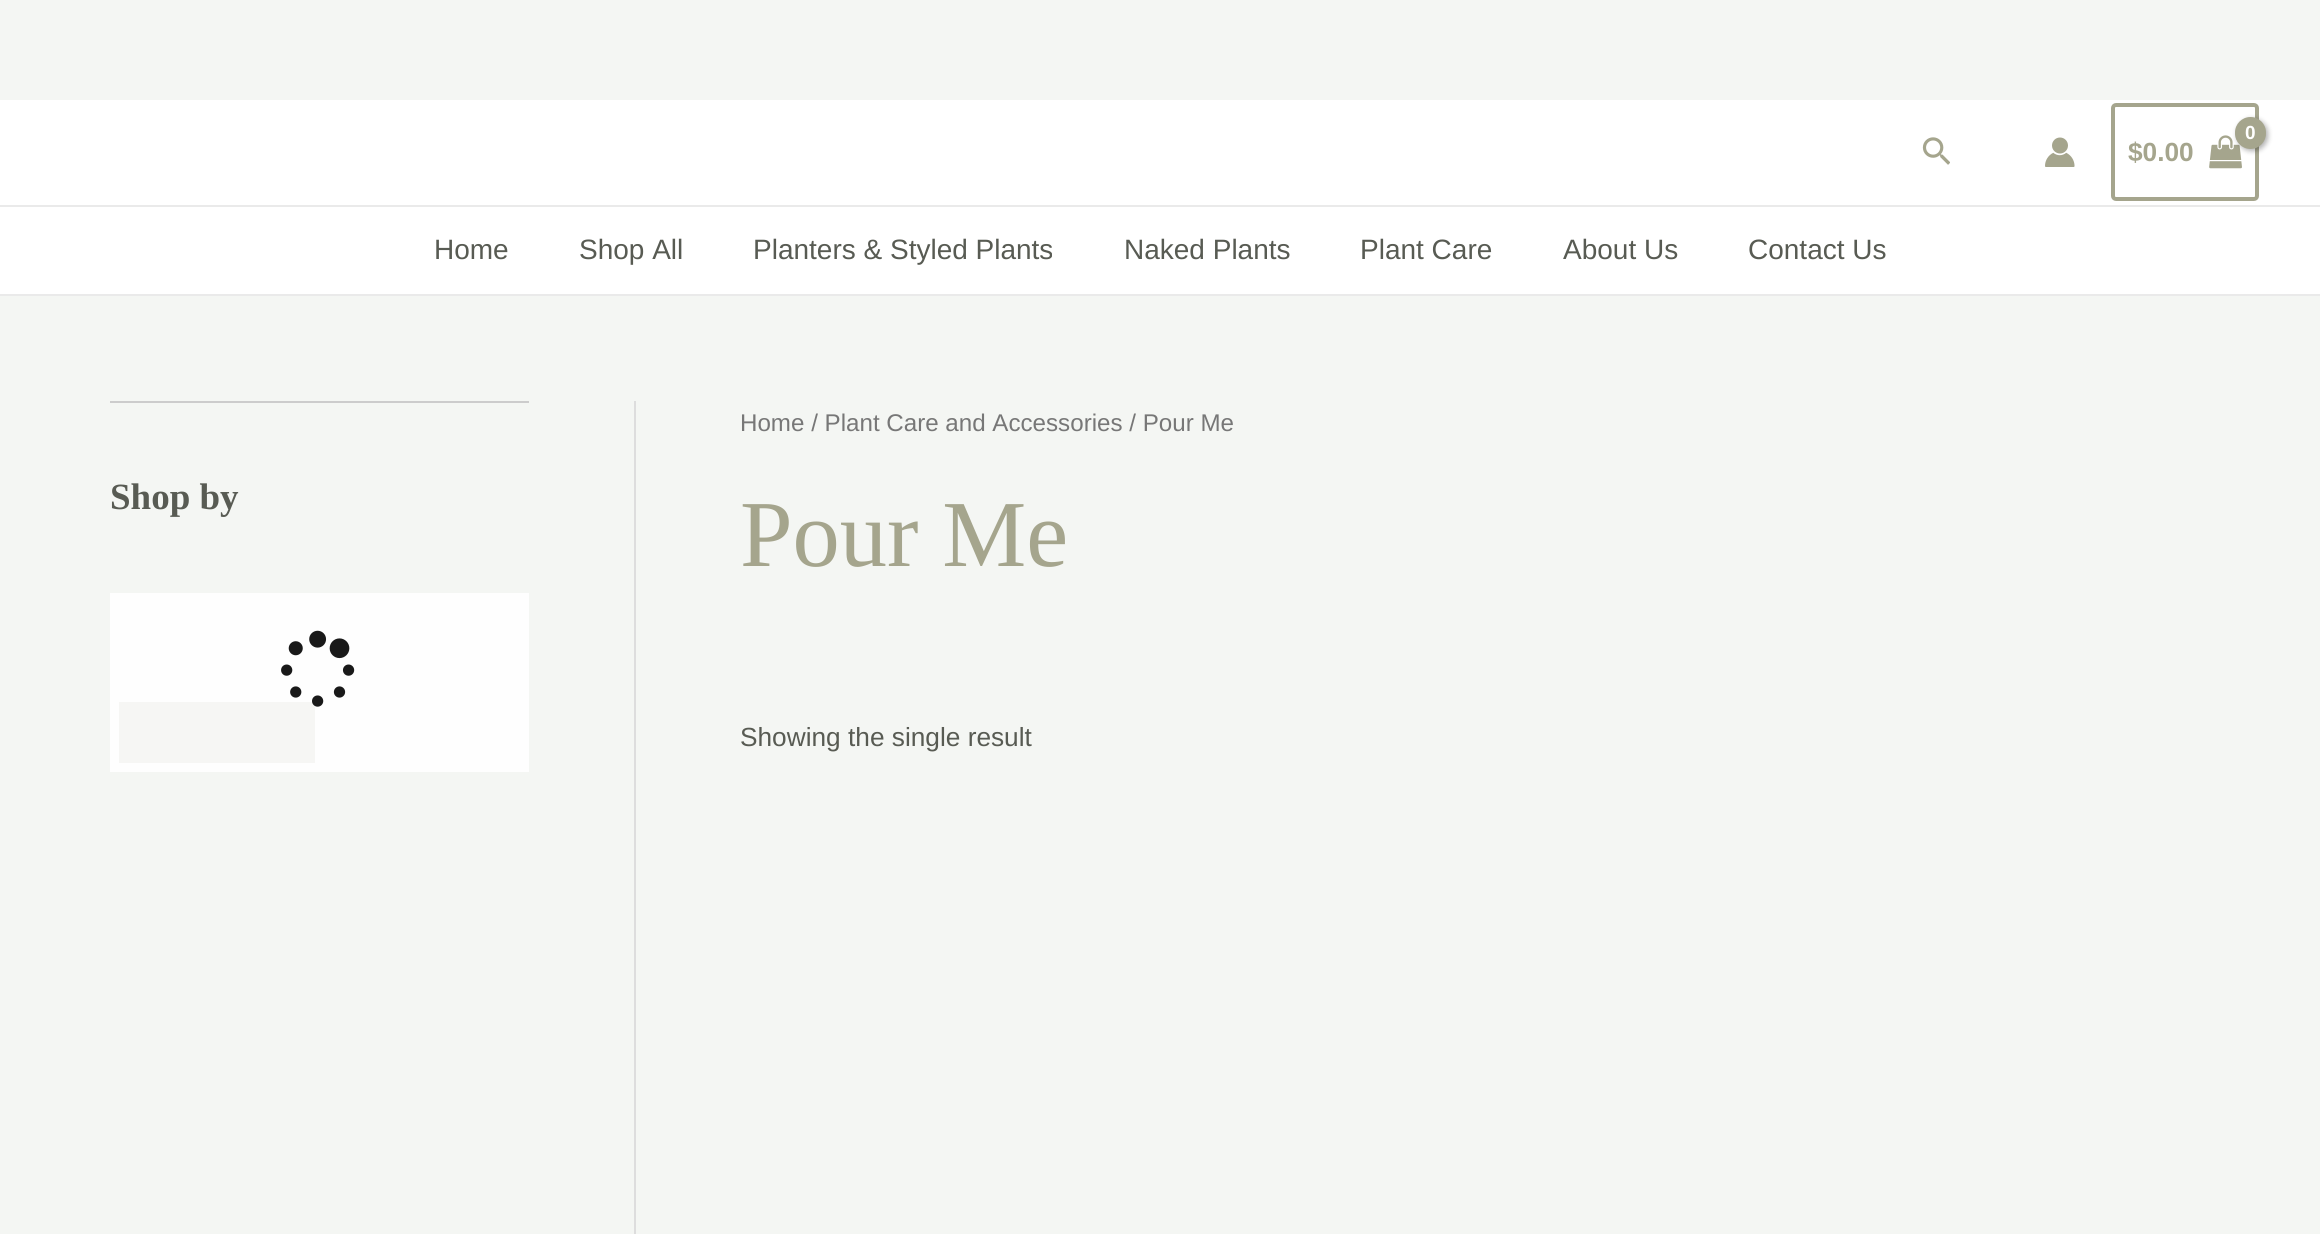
#include <cairo.h>
#include <math.h>
#include <stddef.h>

static cairo_t *ctx;

static void use_color(int r, int g, int b) {
    cairo_set_source_rgb(ctx, r / 255.0, g / 255.0, b / 255.0);
}

static void spaced_text(double x, double y, const char *s, double letter, double word) {
    cairo_move_to(ctx, x, y);
    while (*s) {
        char ch[5] = {0};
        int n = 0;
        do ch[n++] = *s++; while ((*s & 0xC0) == 0x80);
        cairo_show_text(ctx, ch);
        cairo_rel_move_to(ctx, letter + word * (*ch == ' '), 0);
    }
}

static void round_rect(double x, double y, double w, double h, double r) {
    cairo_new_sub_path(ctx);
    cairo_arc(ctx, x + w - r, y + h - r, r, 0, M_PI / 2);
    cairo_arc(ctx, x + r, y + h - r, r, M_PI / 2, M_PI);
    cairo_arc(ctx, x + r, y + r, r, M_PI, 1.5 * M_PI);
    cairo_arc(ctx, x + w - r, y + r, r, 1.5 * M_PI, 2 * M_PI);
    cairo_close_path(ctx);
}

static void shadow(double x, double y, double w, double h, double r, double blur, double alpha) {
    cairo_push_group_with_content(ctx, CAIRO_CONTENT_ALPHA);
    cairo_set_operator(ctx, CAIRO_OPERATOR_SOURCE);
    for (int i = 15; i >= -15 && fmin(w, h) + blur * i / 3 > 0; i -= 2) {
        double e = blur * i / 6;
        cairo_set_source_rgba(ctx, 0, 0, 0, alpha * erfc((i - 1) / 8.5) / 2);
        round_rect(x - e, y - e, w + 2 * e, h + 2 * e, fmax(0, fmin(r + e + blur * .6, fmin(w, h) / 2 + e)));
        cairo_fill(ctx);
    }
    cairo_pattern_t *soft = cairo_pop_group(ctx);
    cairo_mask(ctx, soft);
    cairo_pattern_destroy(soft);
}

static void picture(const char *path, double x, double y, double w, double h) {
    cairo_surface_t *image = cairo_image_surface_create_from_png(path);
    cairo_save(ctx);
    cairo_set_source_surface(ctx, image, x, y);
    cairo_rectangle(ctx, x, y, w, h);
    cairo_fill(ctx);
    cairo_restore(ctx);
    cairo_surface_destroy(image);
}

int main(void) {
    cairo_surface_t *surface = cairo_image_surface_create(CAIRO_FORMAT_RGB24, 2320, 1234);
    ctx = cairo_create(surface);
    cairo_font_options_t *options = cairo_font_options_create();
    cairo_font_options_set_hint_metrics(options, CAIRO_HINT_METRICS_OFF);
    cairo_font_options_set_hint_style(options, CAIRO_HINT_STYLE_NONE);
    cairo_set_font_options(ctx, options);
    cairo_set_miter_limit(ctx, 4);
    use_color(244, 246, 243);
    cairo_paint(ctx);
    use_color(254, 254, 254);
    cairo_rectangle(ctx, 110, 593, 419, 179);
    cairo_fill(ctx);
    use_color(255, 255, 255);
    cairo_rectangle(ctx, 0, 100, 2320, 105);
    cairo_fill(ctx);
    use_color(234, 234, 234);
    cairo_rectangle(ctx, 0, 205, 2320, 2);
    cairo_fill(ctx);
    picture("img1.png", 1922, 137, 28, 28);
    picture("img2.png", 2045, 137, 30, 30);
    round_rect(2113, 105, 144, 94, 3);
    use_color(165, 165, 141);
    cairo_set_line_width(ctx, 4);
    cairo_stroke(ctx);
    picture("img3.png", 2209, 135, 33, 34);
    use_color(0, 0, 0);
    shadow(2237, 119, 31, 32, 15.5, 2.5, 0.3);
    use_color(165, 165, 141);
    round_rect(2235, 117, 31, 32, 15.5);
    cairo_fill(ctx);
    cairo_select_font_face(ctx, "Liberation Sans", CAIRO_FONT_SLANT_NORMAL, CAIRO_FONT_WEIGHT_BOLD);
    cairo_set_font_size(ctx, 19);
    use_color(255, 255, 255);
    spaced_text(2245, 139, "0", -1, 0);
    cairo_set_font_size(ctx, 26.25);
    use_color(165, 165, 141);
    cairo_move_to(ctx, 2128, 161);
    cairo_show_text(ctx, "$0.00");
    use_color(255, 255, 255);
    cairo_rectangle(ctx, 0, 207, 2320, 87);
    cairo_fill(ctx);
    use_color(234, 234, 234);
    cairo_rectangle(ctx, 0, 294, 2320, 2);
    cairo_fill(ctx);
    cairo_select_font_face(ctx, "Liberation Sans", CAIRO_FONT_SLANT_NORMAL, CAIRO_FONT_WEIGHT_NORMAL);
    cairo_set_font_size(ctx, 28);
    use_color(88, 91, 83);
    cairo_move_to(ctx, 434, 259);
    cairo_show_text(ctx, "Home");
    cairo_move_to(ctx, 579, 259);
    cairo_show_text(ctx, "Shop All");
    cairo_move_to(ctx, 753, 259);
    cairo_show_text(ctx, "Planters & Styled Plants");
    cairo_move_to(ctx, 1124, 259);
    cairo_show_text(ctx, "Naked Plants");
    cairo_move_to(ctx, 1360, 259);
    cairo_show_text(ctx, "Plant Care");
    cairo_move_to(ctx, 1563, 259);
    cairo_show_text(ctx, "About Us");
    cairo_move_to(ctx, 1748, 259);
    cairo_show_text(ctx, "Contact Us");
    use_color(221, 221, 221);
    cairo_rectangle(ctx, 634, 401, 2, 833);
    cairo_fill(ctx);
    use_color(204, 204, 204);
    cairo_rectangle(ctx, 110, 401, 419, 2);
    cairo_fill(ctx);
    cairo_select_font_face(ctx, "Liberation Serif", CAIRO_FONT_SLANT_NORMAL, CAIRO_FONT_WEIGHT_BOLD);
    cairo_set_font_size(ctx, 37);
    use_color(88, 91, 83);
    cairo_move_to(ctx, 110, 509);
    cairo_show_text(ctx, "Shop by");
    use_color(246, 246, 244);
    cairo_rectangle(ctx, 119, 702, 196, 61);
    cairo_fill(ctx);
    picture("img4.png", 281, 630, 74, 77);
    cairo_select_font_face(ctx, "Liberation Sans", CAIRO_FONT_SLANT_NORMAL, CAIRO_FONT_WEIGHT_NORMAL);
    cairo_set_font_size(ctx, 24.15);
    use_color(119, 119, 119);
    cairo_move_to(ctx, 740, 431);
    cairo_show_text(ctx, "Home / Plant Care and Accessories / Pour Me");
    cairo_select_font_face(ctx, "Liberation Serif", CAIRO_FONT_SLANT_NORMAL, CAIRO_FONT_WEIGHT_NORMAL);
    cairo_set_font_size(ctx, 94.5);
    use_color(165, 165, 141);
    cairo_move_to(ctx, 740, 566);
    cairo_show_text(ctx, "Pour Me");
    cairo_select_font_face(ctx, "Liberation Sans", CAIRO_FONT_SLANT_NORMAL, CAIRO_FONT_WEIGHT_NORMAL);
    cairo_set_font_size(ctx, 26.25);
    use_color(88, 91, 83);
    cairo_move_to(ctx, 740, 746);
    cairo_show_text(ctx, "Showing the single result");
    cairo_surface_write_to_png(surface, "result.png");
    cairo_font_options_destroy(options);
    cairo_destroy(ctx);
    cairo_surface_destroy(surface);
    return 0;
}
